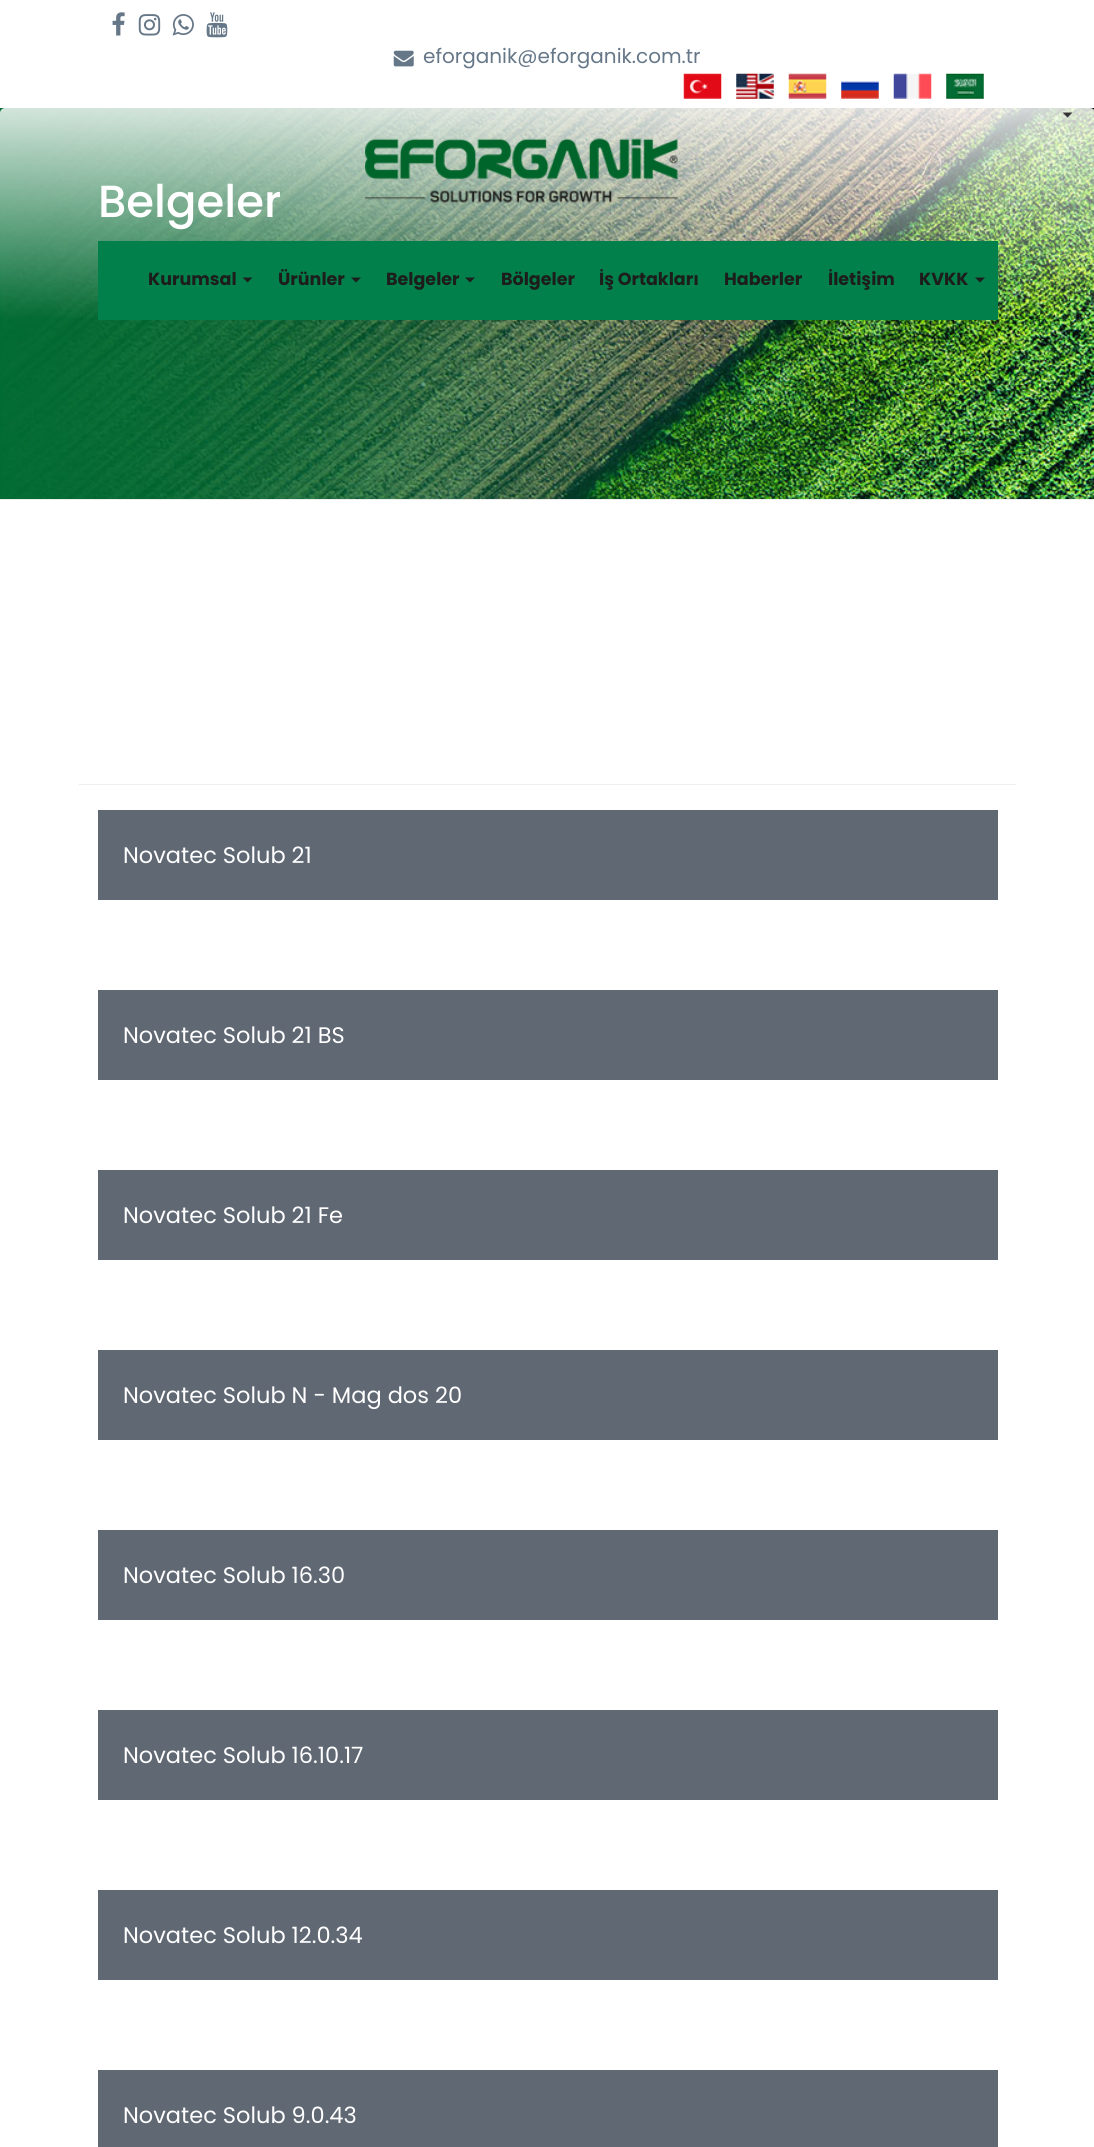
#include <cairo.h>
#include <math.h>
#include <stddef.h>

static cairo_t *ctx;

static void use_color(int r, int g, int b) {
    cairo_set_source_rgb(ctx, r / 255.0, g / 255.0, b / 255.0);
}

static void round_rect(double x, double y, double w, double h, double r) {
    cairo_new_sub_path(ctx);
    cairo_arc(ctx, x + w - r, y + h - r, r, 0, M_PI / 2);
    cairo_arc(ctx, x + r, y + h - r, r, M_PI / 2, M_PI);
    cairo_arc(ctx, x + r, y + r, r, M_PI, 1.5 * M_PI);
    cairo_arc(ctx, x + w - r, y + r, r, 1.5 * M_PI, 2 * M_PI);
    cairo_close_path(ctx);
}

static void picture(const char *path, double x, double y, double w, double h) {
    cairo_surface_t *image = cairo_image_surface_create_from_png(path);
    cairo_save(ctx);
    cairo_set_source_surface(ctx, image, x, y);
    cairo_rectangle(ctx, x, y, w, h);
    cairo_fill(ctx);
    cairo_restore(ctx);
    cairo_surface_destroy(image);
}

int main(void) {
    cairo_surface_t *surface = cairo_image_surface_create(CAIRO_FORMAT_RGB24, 1094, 2147);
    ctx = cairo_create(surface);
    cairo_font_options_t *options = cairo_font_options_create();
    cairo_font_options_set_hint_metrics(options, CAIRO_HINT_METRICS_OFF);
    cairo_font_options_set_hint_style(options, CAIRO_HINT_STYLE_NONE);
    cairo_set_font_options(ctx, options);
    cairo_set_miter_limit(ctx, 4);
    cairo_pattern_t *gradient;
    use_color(255, 255, 255);
    cairo_paint(ctx);
    picture("img1.png", 112, 12, 13, 24);
    picture("img2.png", 138, 14, 23, 22);
    picture("img3.png", 172, 14, 22, 22);
    picture("img4.png", 206, 12, 22, 26);
    picture("img5.png", 393, 50, 21, 17);
    cairo_select_font_face(ctx, "Poppins", CAIRO_FONT_SLANT_NORMAL, CAIRO_FONT_WEIGHT_NORMAL);
    cairo_set_font_size(ctx, 20);
    use_color(102, 119, 136);
    cairo_move_to(ctx, 423, 63);
    cairo_show_text(ctx, "eforganik@eforganik.com.tr");
    picture("img6.png", 683, 73, 39, 26);
    picture("img7.png", 736, 73, 38, 26);
    picture("img8.png", 788, 73, 39, 26);
    picture("img9.png", 841, 81, 38, 18);
    picture("img10.png", 893, 73, 39, 26);
    picture("img11.png", 946, 73, 38, 26);
    use_color(0, 108, 50);
    cairo_rectangle(ctx, 0, 108, 2, 391);
    cairo_fill(ctx);
    picture("img13.png", 2, 108, 1092, 391);
    cairo_select_font_face(ctx, "Poppins Medium", CAIRO_FONT_SLANT_NORMAL, CAIRO_FONT_WEIGHT_NORMAL);
    cairo_set_font_size(ctx, 45);
    use_color(255, 255, 255);
    cairo_move_to(ctx, 98, 217);
    cairo_show_text(ctx, "Belgeler");
    gradient = cairo_pattern_create_linear(548, 107, 548, 320);
    cairo_pattern_add_color_stop_rgba(gradient, 0, 1, 1, 1, 0.83);
    cairo_pattern_add_color_stop_rgba(gradient, 1, 1, 1, 1, 0);
    cairo_set_source(ctx, gradient);
    cairo_pattern_destroy(gradient);
    round_rect(0, 108, 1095, 212, 5);
    cairo_fill(ctx);
    use_color(51, 51, 51);
    cairo_new_path(ctx);
    cairo_move_to(ctx, 1062.5, 112.5);
    cairo_line_to(ctx, 1072.5, 112.5);
    cairo_line_to(ctx, 1067.5, 117.5);
    cairo_close_path(ctx);
    cairo_fill(ctx);
    picture("img12.png", 365, 138, 313, 65);
    use_color(1, 128, 76);
    cairo_rectangle(ctx, 98, 241, 900, 79);
    cairo_fill(ctx);
    cairo_select_font_face(ctx, "Poppins", CAIRO_FONT_SLANT_NORMAL, CAIRO_FONT_WEIGHT_BOLD);
    cairo_set_font_size(ctx, 17.5);
    use_color(29, 29, 27);
    cairo_move_to(ctx, 148, 285);
    cairo_show_text(ctx, "Kurumsal");
    cairo_new_path(ctx);
    cairo_move_to(ctx, 242.5, 277.5);
    cairo_line_to(ctx, 252.5, 277.5);
    cairo_line_to(ctx, 247.5, 282.5);
    cairo_close_path(ctx);
    cairo_fill(ctx);
    cairo_move_to(ctx, 278, 285);
    cairo_show_text(ctx, "Ürünler");
    cairo_new_path(ctx);
    cairo_move_to(ctx, 351, 277.5);
    cairo_line_to(ctx, 361, 277.5);
    cairo_line_to(ctx, 356, 282.5);
    cairo_close_path(ctx);
    cairo_fill(ctx);
    cairo_move_to(ctx, 386, 285);
    cairo_show_text(ctx, "Belgeler");
    cairo_new_path(ctx);
    cairo_move_to(ctx, 465, 277.5);
    cairo_line_to(ctx, 475, 277.5);
    cairo_line_to(ctx, 470, 282.5);
    cairo_close_path(ctx);
    cairo_fill(ctx);
    cairo_move_to(ctx, 501, 285);
    cairo_show_text(ctx, "Bölgeler");
    cairo_move_to(ctx, 599, 285);
    cairo_show_text(ctx, "İş Ortakları");
    cairo_move_to(ctx, 724, 285);
    cairo_show_text(ctx, "Haberler");
    cairo_move_to(ctx, 828, 285);
    cairo_show_text(ctx, "İletişim");
    cairo_move_to(ctx, 919, 285);
    cairo_show_text(ctx, "KVKK");
    cairo_new_path(ctx);
    cairo_move_to(ctx, 975, 277.5);
    cairo_line_to(ctx, 985, 277.5);
    cairo_line_to(ctx, 980, 282.5);
    cairo_close_path(ctx);
    cairo_fill(ctx);
    use_color(238, 238, 238);
    cairo_rectangle(ctx, 0, 499, 1094, 1);
    cairo_fill(ctx);
    cairo_rectangle(ctx, 79, 784, 937, 1);
    cairo_fill(ctx);
    use_color(96, 104, 116);
    cairo_rectangle(ctx, 98, 810, 900, 90);
    cairo_fill(ctx);
    cairo_select_font_face(ctx, "Poppins", CAIRO_FONT_SLANT_NORMAL, CAIRO_FONT_WEIGHT_NORMAL);
    cairo_set_font_size(ctx, 22.5);
    use_color(255, 255, 255);
    cairo_move_to(ctx, 123, 863);
    cairo_show_text(ctx, "Novatec Solub 21");
    use_color(96, 104, 116);
    cairo_rectangle(ctx, 98, 990, 900, 90);
    cairo_fill(ctx);
    use_color(255, 255, 255);
    cairo_move_to(ctx, 123, 1043);
    cairo_show_text(ctx, "Novatec Solub 21 BS");
    use_color(96, 104, 116);
    cairo_rectangle(ctx, 98, 1170, 900, 90);
    cairo_fill(ctx);
    use_color(255, 255, 255);
    cairo_move_to(ctx, 123, 1223);
    cairo_show_text(ctx, "Novatec Solub 21 Fe");
    use_color(96, 104, 116);
    cairo_rectangle(ctx, 98, 1350, 900, 90);
    cairo_fill(ctx);
    use_color(255, 255, 255);
    cairo_move_to(ctx, 123, 1403);
    cairo_show_text(ctx, "Novatec Solub N - Mag dos 20");
    use_color(96, 104, 116);
    cairo_rectangle(ctx, 98, 1530, 900, 90);
    cairo_fill(ctx);
    use_color(255, 255, 255);
    cairo_move_to(ctx, 123, 1583);
    cairo_show_text(ctx, "Novatec Solub 16.30");
    use_color(96, 104, 116);
    cairo_rectangle(ctx, 98, 1710, 900, 90);
    cairo_fill(ctx);
    use_color(255, 255, 255);
    cairo_move_to(ctx, 123, 1763);
    cairo_show_text(ctx, "Novatec Solub 16.10.17");
    use_color(96, 104, 116);
    cairo_rectangle(ctx, 98, 1890, 900, 90);
    cairo_fill(ctx);
    use_color(255, 255, 255);
    cairo_move_to(ctx, 123, 1943);
    cairo_show_text(ctx, "Novatec Solub 12.0.34");
    use_color(96, 104, 116);
    cairo_rectangle(ctx, 98, 2070, 900, 77);
    cairo_fill(ctx);
    use_color(255, 255, 255);
    cairo_move_to(ctx, 123, 2123);
    cairo_show_text(ctx, "Novatec Solub 9.0.43");
    cairo_surface_write_to_png(surface, "result.png");
    cairo_font_options_destroy(options);
    cairo_destroy(ctx);
    cairo_surface_destroy(surface);
    return 0;
}
